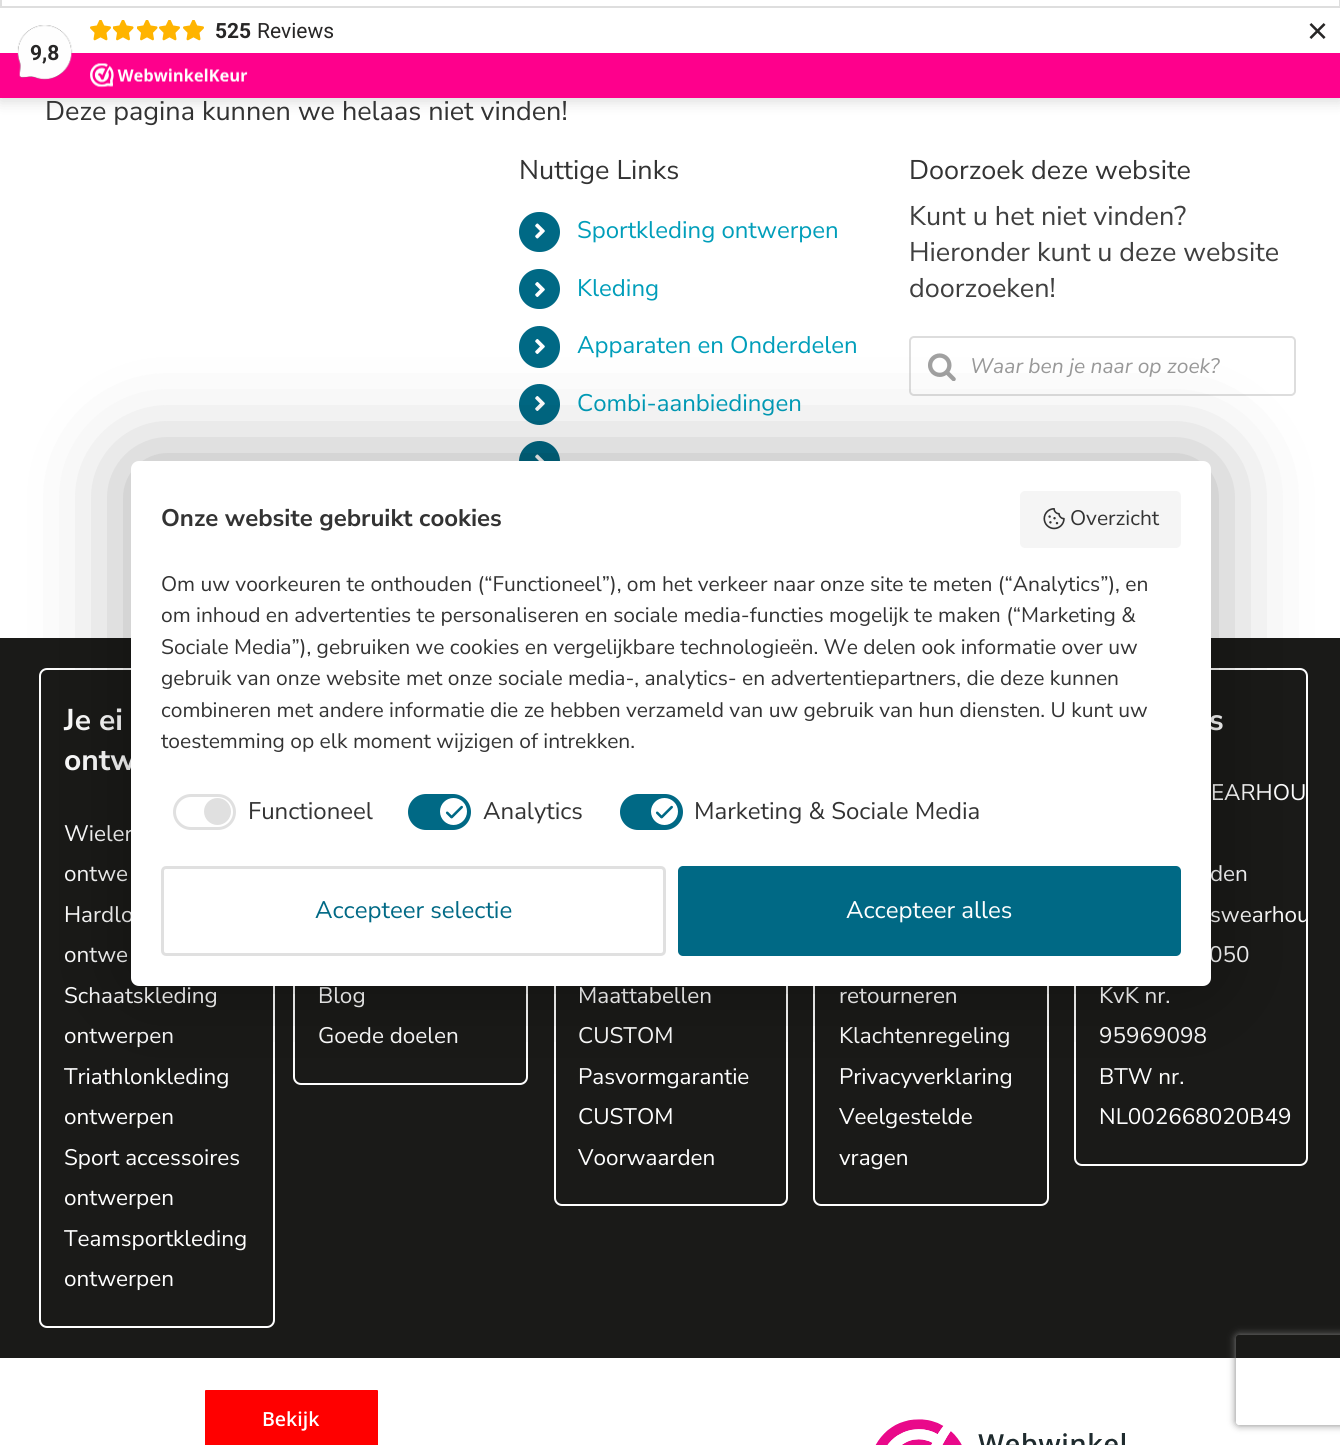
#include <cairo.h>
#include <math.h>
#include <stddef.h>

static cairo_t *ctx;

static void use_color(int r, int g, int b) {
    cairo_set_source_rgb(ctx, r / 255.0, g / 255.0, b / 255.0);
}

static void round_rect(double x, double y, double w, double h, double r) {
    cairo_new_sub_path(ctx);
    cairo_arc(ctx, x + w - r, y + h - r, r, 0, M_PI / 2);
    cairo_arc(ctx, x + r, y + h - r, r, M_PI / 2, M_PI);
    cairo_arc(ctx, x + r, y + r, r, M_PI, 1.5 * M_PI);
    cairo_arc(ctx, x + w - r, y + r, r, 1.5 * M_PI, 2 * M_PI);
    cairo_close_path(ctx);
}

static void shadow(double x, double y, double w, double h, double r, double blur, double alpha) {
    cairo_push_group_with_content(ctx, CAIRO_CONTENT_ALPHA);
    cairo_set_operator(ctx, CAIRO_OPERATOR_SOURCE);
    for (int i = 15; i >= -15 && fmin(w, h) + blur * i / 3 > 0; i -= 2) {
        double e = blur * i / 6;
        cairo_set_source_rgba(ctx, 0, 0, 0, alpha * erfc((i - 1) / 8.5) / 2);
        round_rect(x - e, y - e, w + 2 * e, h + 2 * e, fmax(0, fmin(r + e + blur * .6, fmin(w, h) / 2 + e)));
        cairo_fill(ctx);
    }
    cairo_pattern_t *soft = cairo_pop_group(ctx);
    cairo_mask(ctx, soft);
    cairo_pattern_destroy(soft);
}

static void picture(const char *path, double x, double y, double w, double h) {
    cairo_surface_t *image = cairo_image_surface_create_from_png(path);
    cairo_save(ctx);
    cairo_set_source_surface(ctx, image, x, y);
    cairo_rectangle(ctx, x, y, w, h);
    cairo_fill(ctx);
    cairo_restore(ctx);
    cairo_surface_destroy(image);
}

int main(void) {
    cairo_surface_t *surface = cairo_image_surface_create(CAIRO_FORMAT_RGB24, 1340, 1445);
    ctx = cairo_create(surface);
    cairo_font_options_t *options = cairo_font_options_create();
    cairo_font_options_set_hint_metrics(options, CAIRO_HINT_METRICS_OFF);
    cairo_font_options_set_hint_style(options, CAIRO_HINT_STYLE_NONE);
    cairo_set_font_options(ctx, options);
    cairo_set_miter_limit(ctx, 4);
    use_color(255, 255, 255);
    cairo_paint(ctx);
    use_color(0, 0, 0);
    shadow(0, 11, 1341, 90, 0, 7.5, 0.15);
    use_color(255, 255, 255);
    cairo_rectangle(ctx, 1, -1, 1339, 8);
    cairo_fill_preserve(ctx);
    use_color(222, 222, 222);
    cairo_stroke(ctx);
    use_color(255, 255, 255);
    cairo_rectangle(ctx, 0, 8, 1340, 45);
    cairo_fill(ctx);
    picture("img1.png", 90, 20, 21, 21);
    picture("img2.png", 113, 20, 21, 21);
    picture("img2.png", 137, 20, 21, 21);
    picture("img1.png", 159, 20, 21, 21);
    picture("img1.png", 183, 20, 21, 21);
    cairo_select_font_face(ctx, "Roboto", CAIRO_FONT_SLANT_NORMAL, CAIRO_FONT_WEIGHT_BOLD);
    cairo_set_font_size(ctx, 21);
    use_color(39, 38, 38);
    cairo_move_to(ctx, 215, 38);
    cairo_show_text(ctx, "525");
    cairo_select_font_face(ctx, "Roboto", CAIRO_FONT_SLANT_NORMAL, CAIRO_FONT_WEIGHT_NORMAL);
    cairo_move_to(ctx, 257, 38);
    cairo_show_text(ctx, "Reviews");
    cairo_select_font_face(ctx, "Liberation Sans", CAIRO_FONT_SLANT_NORMAL, CAIRO_FONT_WEIGHT_NORMAL);
    cairo_set_font_size(ctx, 36);
    cairo_move_to(ctx, 1307, 43);
    cairo_show_text(ctx, "×");
    use_color(254, 0, 140);
    cairo_rectangle(ctx, 0, 53, 1340, 45);
    cairo_fill(ctx);
    picture("img3.png", 17, 25, 56, 55);
    cairo_select_font_face(ctx, "Roboto", CAIRO_FONT_SLANT_NORMAL, CAIRO_FONT_WEIGHT_BOLD);
    cairo_set_font_size(ctx, 21);
    use_color(39, 38, 38);
    cairo_move_to(ctx, 30, 60);
    cairo_show_text(ctx, "9,8");
    picture("img4.png", 90, 63, 158, 25);
    cairo_select_font_face(ctx, "Nunito Sans", CAIRO_FONT_SLANT_NORMAL, CAIRO_FONT_WEIGHT_NORMAL);
    cairo_set_font_size(ctx, 27);
    use_color(51, 51, 51);
    cairo_move_to(ctx, 45, 120);
    cairo_show_text(ctx, "Deze pagina kunnen we helaas niet vinden!");
    cairo_move_to(ctx, 519, 179);
    cairo_show_text(ctx, "Nuttige Links");
    use_color(0, 105, 133);
    round_rect(519, 212, 41, 40, 20);
    cairo_fill(ctx);
    picture("img5.png", 535, 223, 10, 16);
    cairo_set_font_size(ctx, 24);
    use_color(0, 158, 186);
    cairo_move_to(ctx, 577, 238);
    cairo_show_text(ctx, "Sportkleding ontwerpen");
    use_color(0, 105, 133);
    round_rect(519, 269, 41, 40, 20);
    cairo_fill(ctx);
    picture("img6.png", 535, 282, 10, 15);
    use_color(0, 158, 186);
    cairo_move_to(ctx, 577, 296);
    cairo_show_text(ctx, "Kleding");
    use_color(0, 105, 133);
    round_rect(519, 326, 41, 42, 20.5);
    cairo_fill(ctx);
    picture("img6.png", 535, 339, 10, 15);
    use_color(0, 158, 186);
    cairo_move_to(ctx, 577, 353);
    cairo_show_text(ctx, "Apparaten en Onderdelen");
    use_color(0, 105, 133);
    cairo_new_path(ctx);
    cairo_arc(ctx, 539.5, 404.5, 20.5, 0, 2 * M_PI);
    cairo_fill(ctx);
    picture("img6.png", 535, 396, 10, 15);
    use_color(0, 158, 186);
    cairo_move_to(ctx, 577, 411);
    cairo_show_text(ctx, "Combi-aanbiedingen");
    use_color(0, 105, 133);
    cairo_new_path(ctx);
    cairo_arc(ctx, 539.5, 461.5, 20.5, 0, 2 * M_PI);
    cairo_fill(ctx);
    picture("img7.png", 535, 454, 10, 7);
    cairo_set_font_size(ctx, 27);
    use_color(51, 51, 51);
    cairo_move_to(ctx, 909, 179);
    cairo_show_text(ctx, "Doorzoek deze website");
    use_color(63, 63, 63);
    cairo_move_to(ctx, 909, 225);
    cairo_show_text(ctx, "Kunt u het niet vinden?");
    cairo_move_to(ctx, 909, 261);
    cairo_show_text(ctx, "Hieronder kunt u deze website");
    cairo_move_to(ctx, 909, 297);
    cairo_show_text(ctx, "doorzoeken!");
    round_rect(910, 337, 385, 58, 4);
    use_color(221, 221, 221);
    cairo_stroke(ctx);
    picture("img8.png", 928, 353, 28, 28);
    cairo_select_font_face(ctx, "Nunito Sans", CAIRO_FONT_SLANT_ITALIC, CAIRO_FONT_WEIGHT_NORMAL);
    cairo_set_font_size(ctx, 21);
    use_color(153, 153, 153);
    cairo_move_to(ctx, 970, 373);
    cairo_show_text(ctx, "Waar ben je naar op zoek?");
    use_color(26, 26, 24);
    cairo_rectangle(ctx, 0, 638, 1340, 720);
    cairo_fill(ctx);
    round_rect(40, 669, 234, 658, 7);
    use_color(255, 255, 255);
    cairo_stroke(ctx);
    cairo_select_font_face(ctx, "Nunito Sans", CAIRO_FONT_SLANT_NORMAL, CAIRO_FONT_WEIGHT_BOLD);
    cairo_set_font_size(ctx, 30);
    cairo_move_to(ctx, 64, 730);
    cairo_show_text(ctx, "Je ei");
    cairo_move_to(ctx, 64, 770);
    cairo_show_text(ctx, "ontw");
    cairo_select_font_face(ctx, "Nunito Sans", CAIRO_FONT_SLANT_NORMAL, CAIRO_FONT_WEIGHT_NORMAL);
    cairo_set_font_size(ctx, 22.5);
    cairo_move_to(ctx, 64, 841);
    cairo_show_text(ctx, "Wieler");
    cairo_move_to(ctx, 64, 881);
    cairo_show_text(ctx, "ontwe");
    cairo_move_to(ctx, 64, 922);
    cairo_show_text(ctx, "Hardlo");
    cairo_move_to(ctx, 64, 962);
    cairo_show_text(ctx, "ontwe");
    cairo_move_to(ctx, 64, 1003);
    cairo_show_text(ctx, "Schaatskleding");
    cairo_move_to(ctx, 64, 1043);
    cairo_show_text(ctx, "ontwerpen");
    cairo_move_to(ctx, 64, 1084);
    cairo_show_text(ctx, "Triathlonkleding");
    cairo_move_to(ctx, 64, 1124);
    cairo_show_text(ctx, "ontwerpen");
    cairo_move_to(ctx, 64, 1165);
    cairo_show_text(ctx, "Sport accessoires");
    cairo_move_to(ctx, 64, 1205);
    cairo_show_text(ctx, "ontwerpen");
    cairo_move_to(ctx, 64, 1246);
    cairo_show_text(ctx, "Teamsportkleding");
    cairo_move_to(ctx, 64, 1286);
    cairo_show_text(ctx, "ontwerpen");
    round_rect(294, 669, 233, 415, 7);
    cairo_stroke(ctx);
    cairo_move_to(ctx, 318, 1003);
    cairo_show_text(ctx, "Blog");
    cairo_move_to(ctx, 318, 1043);
    cairo_show_text(ctx, "Goede doelen");
    round_rect(555, 669, 232, 536, 7);
    cairo_stroke(ctx);
    cairo_move_to(ctx, 578, 1003);
    cairo_show_text(ctx, "Maattabellen");
    cairo_move_to(ctx, 578, 1043);
    cairo_show_text(ctx, "CUSTOM");
    cairo_move_to(ctx, 578, 1084);
    cairo_show_text(ctx, "Pasvormgarantie");
    cairo_move_to(ctx, 578, 1124);
    cairo_show_text(ctx, "CUSTOM");
    cairo_move_to(ctx, 578, 1165);
    cairo_show_text(ctx, "Voorwaarden");
    round_rect(814, 669, 234, 536, 7);
    cairo_stroke(ctx);
    cairo_move_to(ctx, 839, 1003);
    cairo_show_text(ctx, "retourneren");
    cairo_move_to(ctx, 839, 1043);
    cairo_show_text(ctx, "Klachtenregeling");
    cairo_move_to(ctx, 839, 1084);
    cairo_show_text(ctx, "Privacyverklaring");
    cairo_move_to(ctx, 839, 1124);
    cairo_show_text(ctx, "Veelgestelde");
    cairo_move_to(ctx, 839, 1165);
    cairo_show_text(ctx, "vragen");
    round_rect(1075, 669, 232, 496, 7);
    cairo_stroke(ctx);
    cairo_select_font_face(ctx, "Nunito Sans", CAIRO_FONT_SLANT_NORMAL, CAIRO_FONT_WEIGHT_BOLD);
    cairo_set_font_size(ctx, 30);
    cairo_move_to(ctx, 1209, 730);
    cairo_show_text(ctx, "s");
    cairo_select_font_face(ctx, "Nunito Sans", CAIRO_FONT_SLANT_NORMAL, CAIRO_FONT_WEIGHT_NORMAL);
    cairo_set_font_size(ctx, 22.5);
    cairo_move_to(ctx, 1211, 800);
    cairo_show_text(ctx, "EARHOU");
    cairo_move_to(ctx, 1210, 881);
    cairo_show_text(ctx, "den");
    cairo_save(ctx);
    round_rect(1076, 669, 231, 495, 6);
    cairo_clip(ctx);
    cairo_move_to(ctx, 1210, 922);
    cairo_show_text(ctx, "swearhou");
    cairo_restore(ctx);
    cairo_move_to(ctx, 1209, 962);
    cairo_show_text(ctx, "050");
    cairo_move_to(ctx, 1099, 1003);
    cairo_show_text(ctx, "KvK nr.");
    cairo_move_to(ctx, 1099, 1043);
    cairo_show_text(ctx, "95969098");
    cairo_move_to(ctx, 1099, 1084);
    cairo_show_text(ctx, "BTW nr.");
    cairo_move_to(ctx, 1099, 1124);
    cairo_show_text(ctx, "NL002668020B49");
    use_color(255, 0, 0);
    round_rect(204, 1389, 175, 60, 2);
    cairo_fill_preserve(ctx);
    use_color(255, 255, 255);
    cairo_stroke(ctx);
    cairo_select_font_face(ctx, "Open Sans SemiBold", CAIRO_FONT_SLANT_NORMAL, CAIRO_FONT_WEIGHT_NORMAL);
    cairo_set_font_size(ctx, 19.5);
    cairo_move_to(ctx, 262, 1426);
    cairo_show_text(ctx, "Bekijk");
    picture("img9.png", 875, 1419, 250, 26);
    use_color(0, 0, 0);
    shadow(131, 461, 1080, 525, 8, 48, 0.33);
    use_color(255, 255, 255);
    round_rect(131, 461, 1080, 525, 8);
    cairo_fill(ctx);
    cairo_select_font_face(ctx, "Nunito Sans", CAIRO_FONT_SLANT_NORMAL, CAIRO_FONT_WEIGHT_BOLD);
    cairo_set_font_size(ctx, 24);
    use_color(51, 51, 51);
    cairo_move_to(ctx, 161, 526);
    cairo_show_text(ctx, "Onze website gebruikt cookies");
    use_color(245, 245, 245);
    round_rect(1020, 491, 161, 57, 5);
    cairo_fill(ctx);
    picture("img10.png", 1043, 508, 22, 22);
    cairo_select_font_face(ctx, "Nunito Sans", CAIRO_FONT_SLANT_NORMAL, CAIRO_FONT_WEIGHT_NORMAL);
    cairo_set_font_size(ctx, 21);
    use_color(51, 51, 51);
    cairo_move_to(ctx, 1070, 525);
    cairo_show_text(ctx, "Overzicht");
    cairo_move_to(ctx, 161, 591);
    cairo_show_text(ctx, "Om uw voorkeuren te onthouden (“Functioneel”), om het verkeer naar onze site te meten (“Analytics”), en");
    cairo_move_to(ctx, 161, 622);
    cairo_show_text(ctx, "om inhoud en advertenties te personaliseren en sociale media-functies mogelijk te maken (“Marketing &");
    cairo_move_to(ctx, 161, 654);
    cairo_show_text(ctx, "Sociale Media”), gebruiken we cookies en vergelijkbare technologieën. We delen ook informatie over uw");
    cairo_move_to(ctx, 161, 685);
    cairo_show_text(ctx, "gebruik van onze website met onze sociale media-, analytics- en advertentiepartners, die deze kunnen");
    cairo_move_to(ctx, 161, 717);
    cairo_show_text(ctx, "combineren met andere informatie die ze hebben verzameld van uw gebruik van hun diensten. U kunt uw");
    cairo_move_to(ctx, 161, 748);
    cairo_show_text(ctx, "toestemming op elk moment wijzigen of intrekken.");
    round_rect(174.5, 795.5, 60, 33, 16.5);
    use_color(224, 224, 224);
    cairo_set_line_width(ctx, 3);
    cairo_stroke(ctx);
    cairo_arc(ctx, 217.5, 811.5, 13.5, 0, 2 * M_PI);
    cairo_fill(ctx);
    cairo_set_font_size(ctx, 24);
    use_color(51, 51, 51);
    cairo_move_to(ctx, 248, 819);
    cairo_show_text(ctx, "Functioneel");
    use_color(0, 105, 133);
    round_rect(409.5, 795.5, 60, 33, 16.5);
    cairo_fill_preserve(ctx);
    cairo_stroke(ctx);
    use_color(255, 255, 255);
    cairo_arc(ctx, 453.5, 811.5, 13.5, 0, 2 * M_PI);
    cairo_fill(ctx);
    picture("img11.png", 445, 805, 18, 14);
    use_color(51, 51, 51);
    cairo_move_to(ctx, 483, 819);
    cairo_show_text(ctx, "Analytics");
    use_color(0, 105, 133);
    round_rect(621.5, 795.5, 60, 33, 16.5);
    cairo_fill_preserve(ctx);
    cairo_stroke(ctx);
    use_color(255, 255, 255);
    cairo_arc(ctx, 664.5, 811.5, 13.5, 0, 2 * M_PI);
    cairo_fill(ctx);
    picture("img11.png", 655, 805, 18, 14);
    use_color(51, 51, 51);
    cairo_move_to(ctx, 694, 819);
    cairo_show_text(ctx, "Marketing & Sociale Media");
    round_rect(162.5, 867.5, 502, 87, 3.5);
    use_color(224, 224, 224);
    cairo_stroke(ctx);
    use_color(0, 105, 133);
    cairo_move_to(ctx, 315, 918);
    cairo_show_text(ctx, "Accepteer selectie");
    round_rect(678, 866, 503, 90, 5);
    cairo_fill(ctx);
    use_color(255, 255, 255);
    cairo_move_to(ctx, 846, 918);
    cairo_show_text(ctx, "Accepteer alles");
    cairo_save(ctx);
    cairo_set_fill_rule(ctx, CAIRO_FILL_RULE_EVEN_ODD);
    cairo_new_path(ctx);
    cairo_move_to(ctx, 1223, 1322);
    cairo_line_to(ctx, 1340, 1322);
    cairo_line_to(ctx, 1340, 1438);
    cairo_line_to(ctx, 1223, 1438);
    cairo_close_path(ctx);
    cairo_move_to(ctx, 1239, 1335);
    cairo_line_to(ctx, 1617, 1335);
    cairo_curve_to(ctx, 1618.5, 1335, 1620, 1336.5, 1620, 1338);
    cairo_line_to(ctx, 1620, 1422);
    cairo_curve_to(ctx, 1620, 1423.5, 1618.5, 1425, 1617, 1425);
    cairo_line_to(ctx, 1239, 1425);
    cairo_curve_to(ctx, 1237.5, 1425, 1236, 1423.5, 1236, 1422);
    cairo_line_to(ctx, 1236, 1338);
    cairo_curve_to(ctx, 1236, 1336.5, 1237.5, 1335, 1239, 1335);
    cairo_close_path(ctx);
    cairo_clip(ctx);
    use_color(128, 128, 128);
    shadow(1236, 1335, 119, 90, 3, 4, 1);
    cairo_restore(ctx);
    cairo_surface_write_to_png(surface, "result.png");
    cairo_font_options_destroy(options);
    cairo_destroy(ctx);
    cairo_surface_destroy(surface);
    return 0;
}
